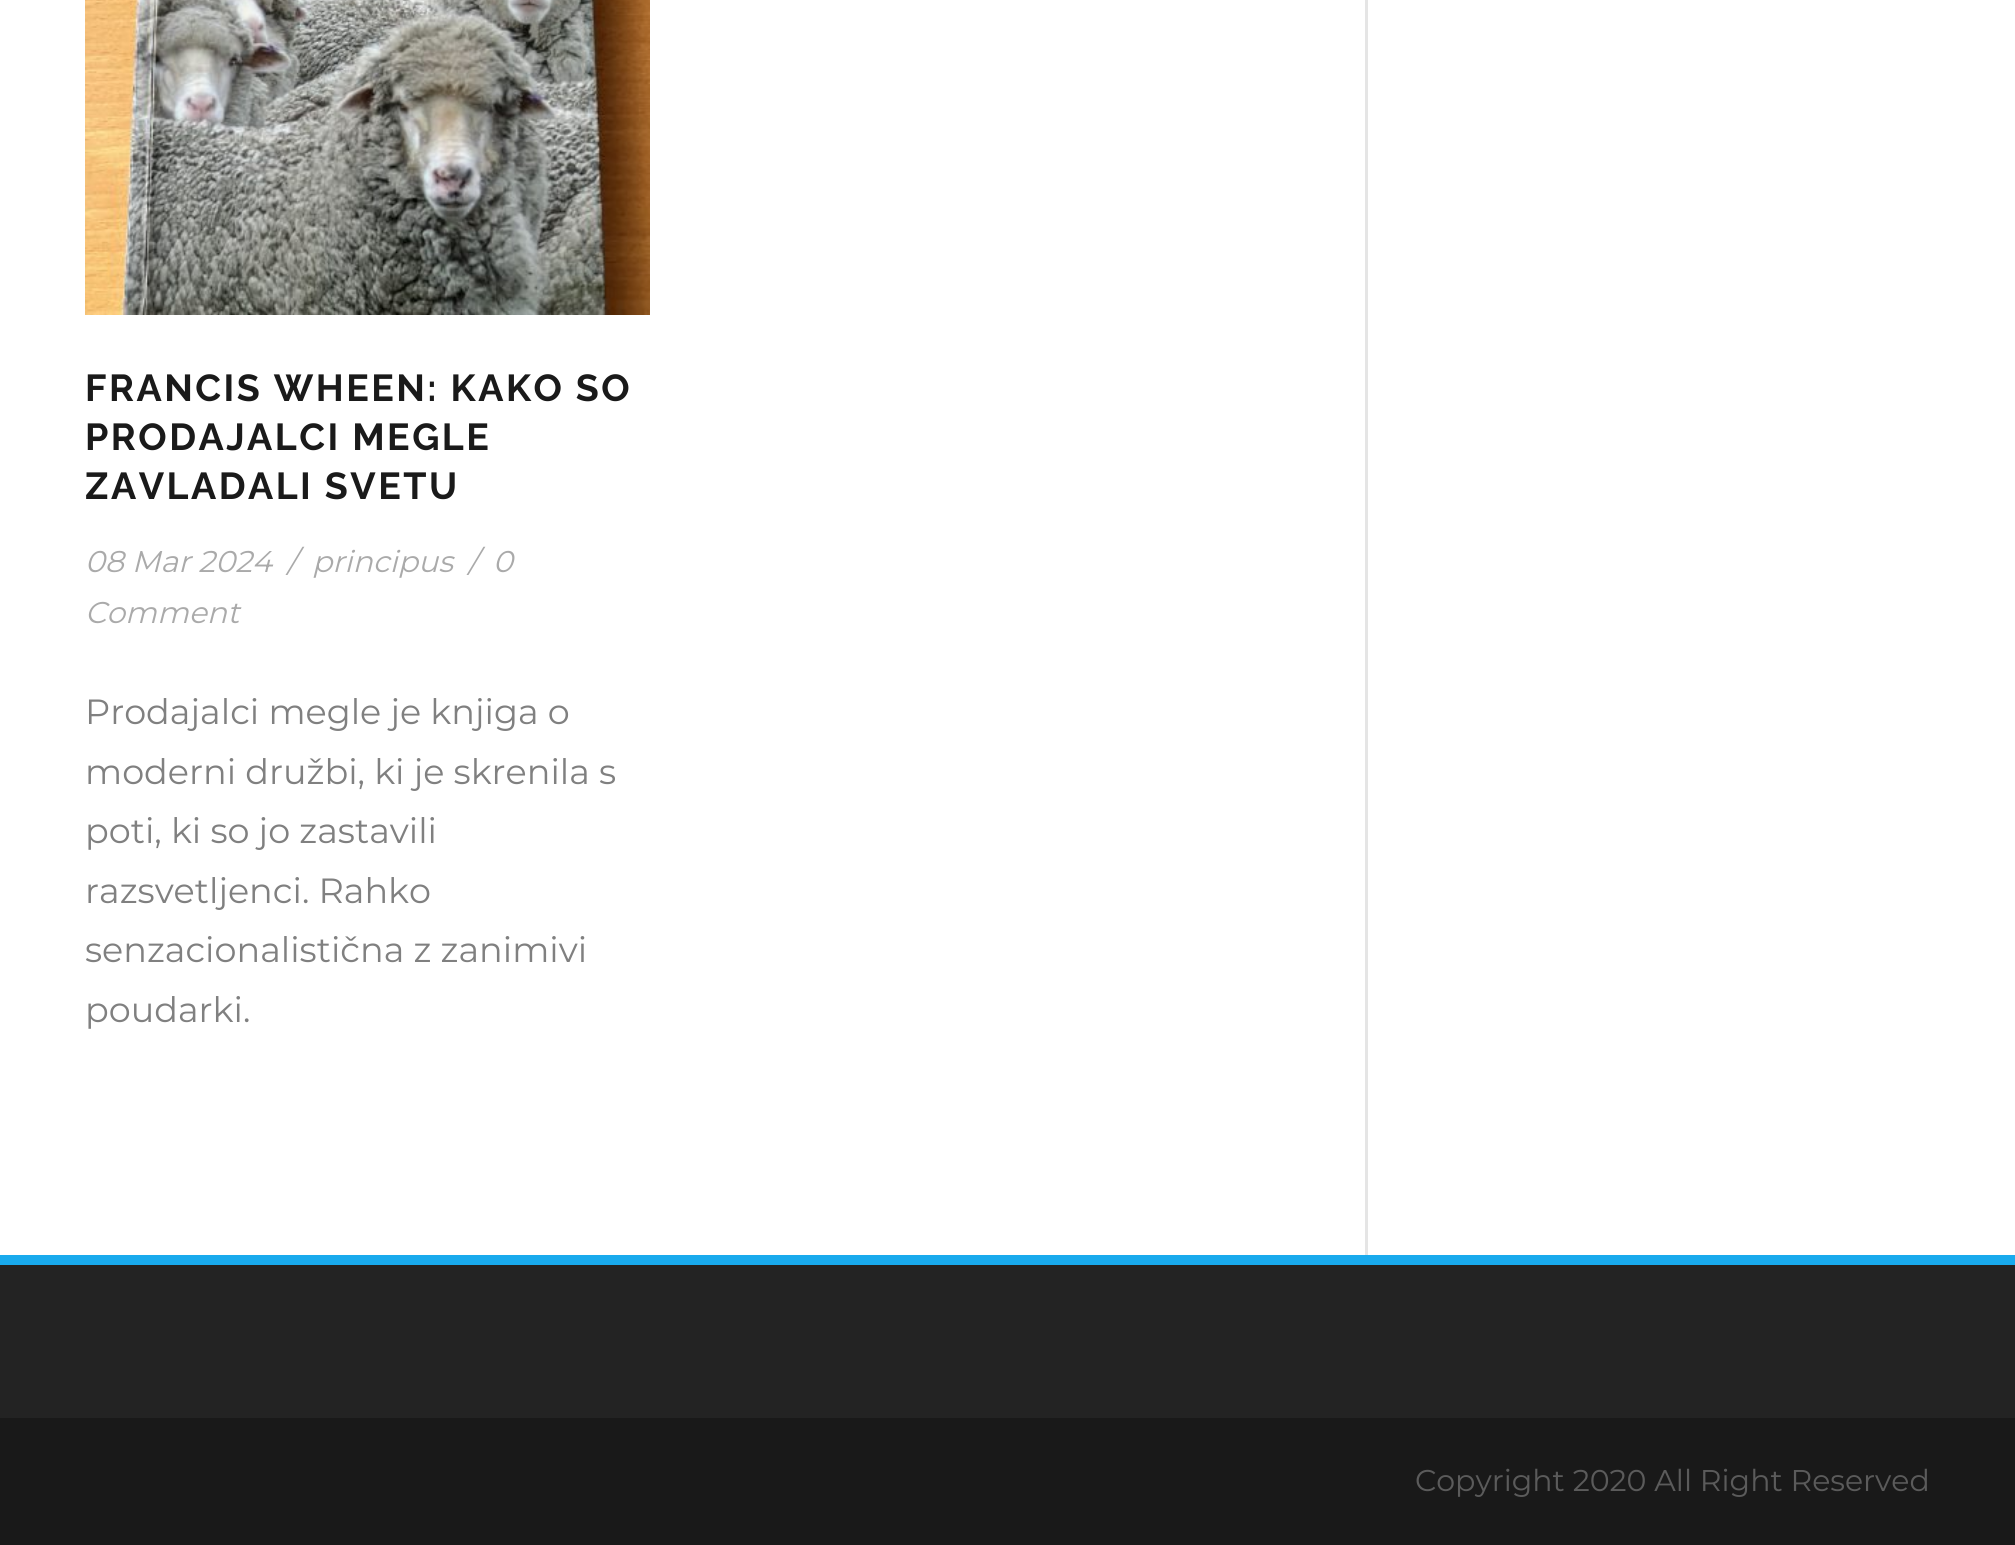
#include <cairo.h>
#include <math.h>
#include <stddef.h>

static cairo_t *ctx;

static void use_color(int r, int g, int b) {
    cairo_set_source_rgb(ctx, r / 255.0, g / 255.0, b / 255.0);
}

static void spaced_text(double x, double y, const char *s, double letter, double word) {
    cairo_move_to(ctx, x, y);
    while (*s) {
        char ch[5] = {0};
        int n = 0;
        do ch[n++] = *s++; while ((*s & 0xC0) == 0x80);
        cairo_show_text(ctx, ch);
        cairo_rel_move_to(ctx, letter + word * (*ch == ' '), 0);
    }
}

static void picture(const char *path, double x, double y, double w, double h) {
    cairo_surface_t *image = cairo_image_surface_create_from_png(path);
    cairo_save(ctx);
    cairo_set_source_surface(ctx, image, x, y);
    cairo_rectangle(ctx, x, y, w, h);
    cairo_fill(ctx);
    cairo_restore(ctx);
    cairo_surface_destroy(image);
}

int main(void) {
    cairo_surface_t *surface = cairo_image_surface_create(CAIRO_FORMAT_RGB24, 2015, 1545);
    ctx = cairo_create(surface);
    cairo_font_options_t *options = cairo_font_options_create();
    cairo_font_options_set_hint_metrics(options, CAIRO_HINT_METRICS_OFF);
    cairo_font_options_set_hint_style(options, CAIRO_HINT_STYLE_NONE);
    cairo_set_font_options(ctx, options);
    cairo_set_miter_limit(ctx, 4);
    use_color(255, 255, 255);
    cairo_paint(ctx);
    picture("img1.png", 85, 0, 565, 315);
    cairo_select_font_face(ctx, "Raleway", CAIRO_FONT_SLANT_NORMAL, CAIRO_FONT_WEIGHT_BOLD);
    cairo_set_font_size(ctx, 37.5);
    use_color(26, 26, 26);
    spaced_text(85, 401, "FRANCIS WHEEN: KAKO SO", 2.5, 0);
    spaced_text(85, 450, "PRODAJALCI MEGLE", 2.5, 0);
    spaced_text(85, 499, "ZAVLADALI SVETU", 2.5, 0);
    cairo_select_font_face(ctx, "Montserrat", CAIRO_FONT_SLANT_ITALIC, CAIRO_FONT_WEIGHT_NORMAL);
    cairo_set_font_size(ctx, 30);
    use_color(170, 170, 170);
    cairo_move_to(ctx, 85, 572);
    cairo_show_text(ctx, "08 Mar 2024");
    cairo_move_to(ctx, 287, 572);
    cairo_show_text(ctx, "/");
    cairo_move_to(ctx, 312, 572);
    cairo_show_text(ctx, "principus");
    cairo_move_to(ctx, 468, 572);
    cairo_show_text(ctx, "/");
    cairo_move_to(ctx, 493, 572);
    cairo_show_text(ctx, "0");
    cairo_move_to(ctx, 85, 623);
    cairo_show_text(ctx, "Comment");
    cairo_select_font_face(ctx, "Montserrat", CAIRO_FONT_SLANT_NORMAL, CAIRO_FONT_WEIGHT_NORMAL);
    cairo_set_font_size(ctx, 35);
    use_color(128, 128, 128);
    cairo_move_to(ctx, 85, 724);
    cairo_show_text(ctx, "Prodajalci megle je knjiga o");
    cairo_move_to(ctx, 85, 784);
    cairo_show_text(ctx, "moderni družbi, ki je skrenila s");
    cairo_move_to(ctx, 85, 843);
    cairo_show_text(ctx, "poti, ki so jo zastavili");
    cairo_move_to(ctx, 85, 903);
    cairo_show_text(ctx, "razsvetljenci. Rahko");
    cairo_move_to(ctx, 85, 962);
    cairo_show_text(ctx, "senzacionalistična z zanimivi");
    cairo_move_to(ctx, 85, 1022);
    cairo_show_text(ctx, "poudarki.");
    use_color(229, 229, 229);
    cairo_rectangle(ctx, 1365, 0, 3, 1255);
    cairo_fill(ctx);
    use_color(35, 35, 35);
    cairo_rectangle(ctx, 0, 1265, 2015, 153);
    cairo_fill(ctx);
    use_color(25, 170, 237);
    cairo_rectangle(ctx, 0, 1255, 2015, 10);
    cairo_fill(ctx);
    use_color(25, 25, 25);
    cairo_rectangle(ctx, 0, 1418, 2015, 127);
    cairo_fill(ctx);
    cairo_set_font_size(ctx, 30);
    use_color(91, 91, 91);
    cairo_move_to(ctx, 1415, 1491);
    cairo_show_text(ctx, "Copyright 2020 All Right Reserved");
    cairo_surface_write_to_png(surface, "result.png");
    cairo_font_options_destroy(options);
    cairo_destroy(ctx);
    cairo_surface_destroy(surface);
    return 0;
}
